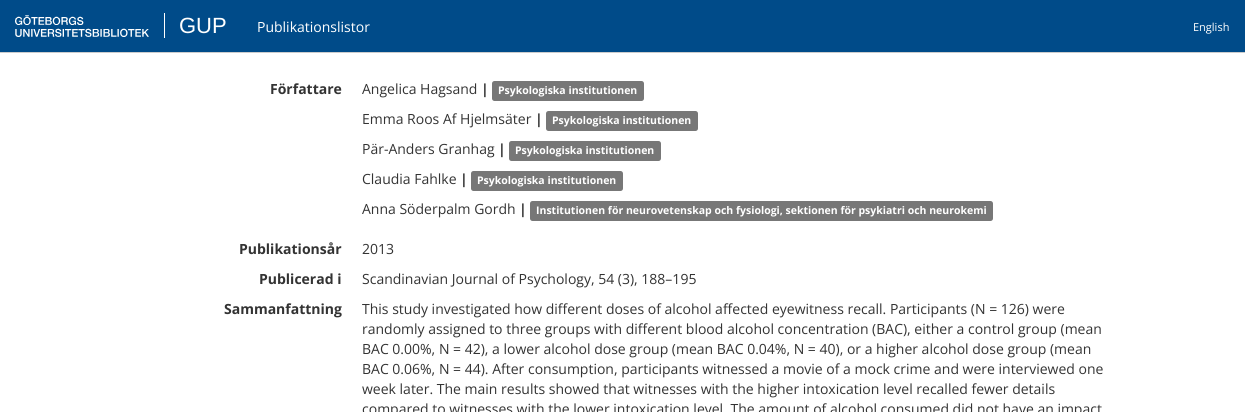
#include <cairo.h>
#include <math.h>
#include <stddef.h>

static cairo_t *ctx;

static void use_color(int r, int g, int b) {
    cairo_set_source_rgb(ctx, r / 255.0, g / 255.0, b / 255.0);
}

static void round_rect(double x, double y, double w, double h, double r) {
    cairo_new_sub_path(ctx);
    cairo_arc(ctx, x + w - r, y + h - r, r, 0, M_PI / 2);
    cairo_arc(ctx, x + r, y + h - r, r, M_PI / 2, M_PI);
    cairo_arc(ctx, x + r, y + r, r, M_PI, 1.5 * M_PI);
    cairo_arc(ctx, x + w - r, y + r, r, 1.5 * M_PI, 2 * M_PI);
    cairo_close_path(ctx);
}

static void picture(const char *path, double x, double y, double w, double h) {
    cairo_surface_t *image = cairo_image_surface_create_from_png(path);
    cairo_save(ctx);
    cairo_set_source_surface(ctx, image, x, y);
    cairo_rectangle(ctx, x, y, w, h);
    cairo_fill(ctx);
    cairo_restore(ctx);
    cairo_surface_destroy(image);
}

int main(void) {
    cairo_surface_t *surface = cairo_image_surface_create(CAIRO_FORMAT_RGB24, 1245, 412);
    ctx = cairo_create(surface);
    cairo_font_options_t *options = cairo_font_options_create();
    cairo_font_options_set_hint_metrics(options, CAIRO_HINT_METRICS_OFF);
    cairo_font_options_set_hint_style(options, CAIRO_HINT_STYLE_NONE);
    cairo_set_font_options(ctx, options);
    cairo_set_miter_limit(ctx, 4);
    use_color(255, 255, 255);
    cairo_paint(ctx);
    use_color(0, 75, 137);
    cairo_rectangle(ctx, 0, 0, 1245, 52);
    cairo_fill(ctx);
    use_color(204, 204, 204);
    cairo_rectangle(ctx, 0, 52, 1245, 1);
    cairo_fill(ctx);
    picture("img1.png", 15, 15, 134, 22);
    use_color(255, 255, 255);
    cairo_rectangle(ctx, 164, 13, 1, 25);
    cairo_fill(ctx);
    cairo_select_font_face(ctx, "Liberation Sans", CAIRO_FONT_SLANT_NORMAL, CAIRO_FONT_WEIGHT_NORMAL);
    cairo_set_font_size(ctx, 22);
    cairo_move_to(ctx, 179, 33);
    cairo_show_text(ctx, "GUP");
    cairo_select_font_face(ctx, "Open Sans", CAIRO_FONT_SLANT_NORMAL, CAIRO_FONT_WEIGHT_NORMAL);
    cairo_set_font_size(ctx, 14);
    cairo_move_to(ctx, 257, 32);
    cairo_show_text(ctx, "Publikationslistor");
    cairo_set_font_size(ctx, 11);
    cairo_move_to(ctx, 1193, 31);
    cairo_show_text(ctx, "English");
    cairo_select_font_face(ctx, "Open Sans", CAIRO_FONT_SLANT_NORMAL, CAIRO_FONT_WEIGHT_BOLD);
    cairo_set_font_size(ctx, 14);
    use_color(51, 51, 51);
    cairo_move_to(ctx, 270, 94);
    cairo_show_text(ctx, "Författare");
    cairo_select_font_face(ctx, "Open Sans", CAIRO_FONT_SLANT_NORMAL, CAIRO_FONT_WEIGHT_NORMAL);
    cairo_move_to(ctx, 362, 94);
    cairo_show_text(ctx, "Angelica Hagsand");
    cairo_select_font_face(ctx, "Open Sans", CAIRO_FONT_SLANT_NORMAL, CAIRO_FONT_WEIGHT_BOLD);
    cairo_move_to(ctx, 481, 94);
    cairo_show_text(ctx, "|");
    use_color(119, 119, 119);
    round_rect(492, 81, 152, 20, 2.5);
    cairo_fill(ctx);
    cairo_set_font_size(ctx, 10.5);
    use_color(255, 255, 255);
    cairo_move_to(ctx, 498, 94);
    cairo_show_text(ctx, "Psykologiska institutionen");
    cairo_select_font_face(ctx, "Open Sans", CAIRO_FONT_SLANT_NORMAL, CAIRO_FONT_WEIGHT_NORMAL);
    cairo_set_font_size(ctx, 14);
    use_color(51, 51, 51);
    cairo_move_to(ctx, 362, 124);
    cairo_show_text(ctx, "Emma Roos Af Hjelmsäter");
    cairo_select_font_face(ctx, "Open Sans", CAIRO_FONT_SLANT_NORMAL, CAIRO_FONT_WEIGHT_BOLD);
    cairo_move_to(ctx, 535, 124);
    cairo_show_text(ctx, "|");
    use_color(119, 119, 119);
    round_rect(546, 111, 152, 20, 2.5);
    cairo_fill(ctx);
    cairo_set_font_size(ctx, 10.5);
    use_color(255, 255, 255);
    cairo_move_to(ctx, 552, 124);
    cairo_show_text(ctx, "Psykologiska institutionen");
    cairo_select_font_face(ctx, "Open Sans", CAIRO_FONT_SLANT_NORMAL, CAIRO_FONT_WEIGHT_NORMAL);
    cairo_set_font_size(ctx, 14);
    use_color(51, 51, 51);
    cairo_move_to(ctx, 362, 154);
    cairo_show_text(ctx, "Pär-Anders Granhag");
    cairo_select_font_face(ctx, "Open Sans", CAIRO_FONT_SLANT_NORMAL, CAIRO_FONT_WEIGHT_BOLD);
    cairo_move_to(ctx, 498, 154);
    cairo_show_text(ctx, "|");
    use_color(119, 119, 119);
    round_rect(509, 141, 152, 20, 2.5);
    cairo_fill(ctx);
    cairo_set_font_size(ctx, 10.5);
    use_color(255, 255, 255);
    cairo_move_to(ctx, 515, 154);
    cairo_show_text(ctx, "Psykologiska institutionen");
    cairo_select_font_face(ctx, "Open Sans", CAIRO_FONT_SLANT_NORMAL, CAIRO_FONT_WEIGHT_NORMAL);
    cairo_set_font_size(ctx, 14);
    use_color(51, 51, 51);
    cairo_move_to(ctx, 362, 184);
    cairo_show_text(ctx, "Claudia Fahlke");
    cairo_select_font_face(ctx, "Open Sans", CAIRO_FONT_SLANT_NORMAL, CAIRO_FONT_WEIGHT_BOLD);
    cairo_move_to(ctx, 460, 184);
    cairo_show_text(ctx, "|");
    use_color(119, 119, 119);
    round_rect(471, 171, 152, 20, 2.5);
    cairo_fill(ctx);
    cairo_set_font_size(ctx, 10.5);
    use_color(255, 255, 255);
    cairo_move_to(ctx, 477, 184);
    cairo_show_text(ctx, "Psykologiska institutionen");
    cairo_select_font_face(ctx, "Open Sans", CAIRO_FONT_SLANT_NORMAL, CAIRO_FONT_WEIGHT_NORMAL);
    cairo_set_font_size(ctx, 14);
    use_color(51, 51, 51);
    cairo_move_to(ctx, 362, 214);
    cairo_show_text(ctx, "Anna Söderpalm Gordh");
    cairo_select_font_face(ctx, "Open Sans", CAIRO_FONT_SLANT_NORMAL, CAIRO_FONT_WEIGHT_BOLD);
    cairo_move_to(ctx, 519, 214);
    cairo_show_text(ctx, "|");
    use_color(119, 119, 119);
    round_rect(530, 201, 463, 20, 2.5);
    cairo_fill(ctx);
    cairo_set_font_size(ctx, 10.5);
    use_color(255, 255, 255);
    cairo_move_to(ctx, 536, 214);
    cairo_show_text(ctx, "Institutionen för neurovetenskap och fysiologi, sektionen för psykiatri och neurokemi");
    cairo_set_font_size(ctx, 14);
    use_color(51, 51, 51);
    cairo_move_to(ctx, 239, 254);
    cairo_show_text(ctx, "Publikationsår");
    cairo_select_font_face(ctx, "Open Sans", CAIRO_FONT_SLANT_NORMAL, CAIRO_FONT_WEIGHT_NORMAL);
    cairo_move_to(ctx, 362, 254);
    cairo_show_text(ctx, "2013");
    cairo_select_font_face(ctx, "Open Sans", CAIRO_FONT_SLANT_NORMAL, CAIRO_FONT_WEIGHT_BOLD);
    cairo_move_to(ctx, 259, 284);
    cairo_show_text(ctx, "Publicerad i");
    cairo_select_font_face(ctx, "Open Sans", CAIRO_FONT_SLANT_NORMAL, CAIRO_FONT_WEIGHT_NORMAL);
    cairo_move_to(ctx, 362, 284);
    cairo_show_text(ctx, "Scandinavian Journal of Psychology, 54 (3), 188–195");
    cairo_select_font_face(ctx, "Open Sans", CAIRO_FONT_SLANT_NORMAL, CAIRO_FONT_WEIGHT_BOLD);
    cairo_move_to(ctx, 224, 314);
    cairo_show_text(ctx, "Sammanfattning");
    cairo_select_font_face(ctx, "Open Sans", CAIRO_FONT_SLANT_NORMAL, CAIRO_FONT_WEIGHT_NORMAL);
    cairo_move_to(ctx, 362, 314);
    cairo_show_text(ctx, "This study investigated how different doses of alcohol affected eyewitness recall. Participants (N = 126) were");
    cairo_move_to(ctx, 362, 334);
    cairo_show_text(ctx, "randomly assigned to three groups with different blood alcohol concentration (BAC), either a control group (mean");
    cairo_move_to(ctx, 362, 354);
    cairo_show_text(ctx, "BAC 0.00%, N = 42), a lower alcohol dose group (mean BAC 0.04%, N = 40), or a higher alcohol dose group (mean");
    cairo_move_to(ctx, 362, 374);
    cairo_show_text(ctx, "BAC 0.06%, N = 44). After consumption, participants witnessed a movie of a mock crime and were interviewed one");
    cairo_move_to(ctx, 362, 394);
    cairo_show_text(ctx, "week later. The main results showed that witnesses with the higher intoxication level recalled fewer details");
    cairo_move_to(ctx, 362, 414);
    cairo_show_text(ctx, "compared to witnesses with the lower intoxication level. The amount of alcohol consumed did not have an impact");
    cairo_surface_write_to_png(surface, "result.png");
    cairo_font_options_destroy(options);
    cairo_destroy(ctx);
    cairo_surface_destroy(surface);
    return 0;
}
